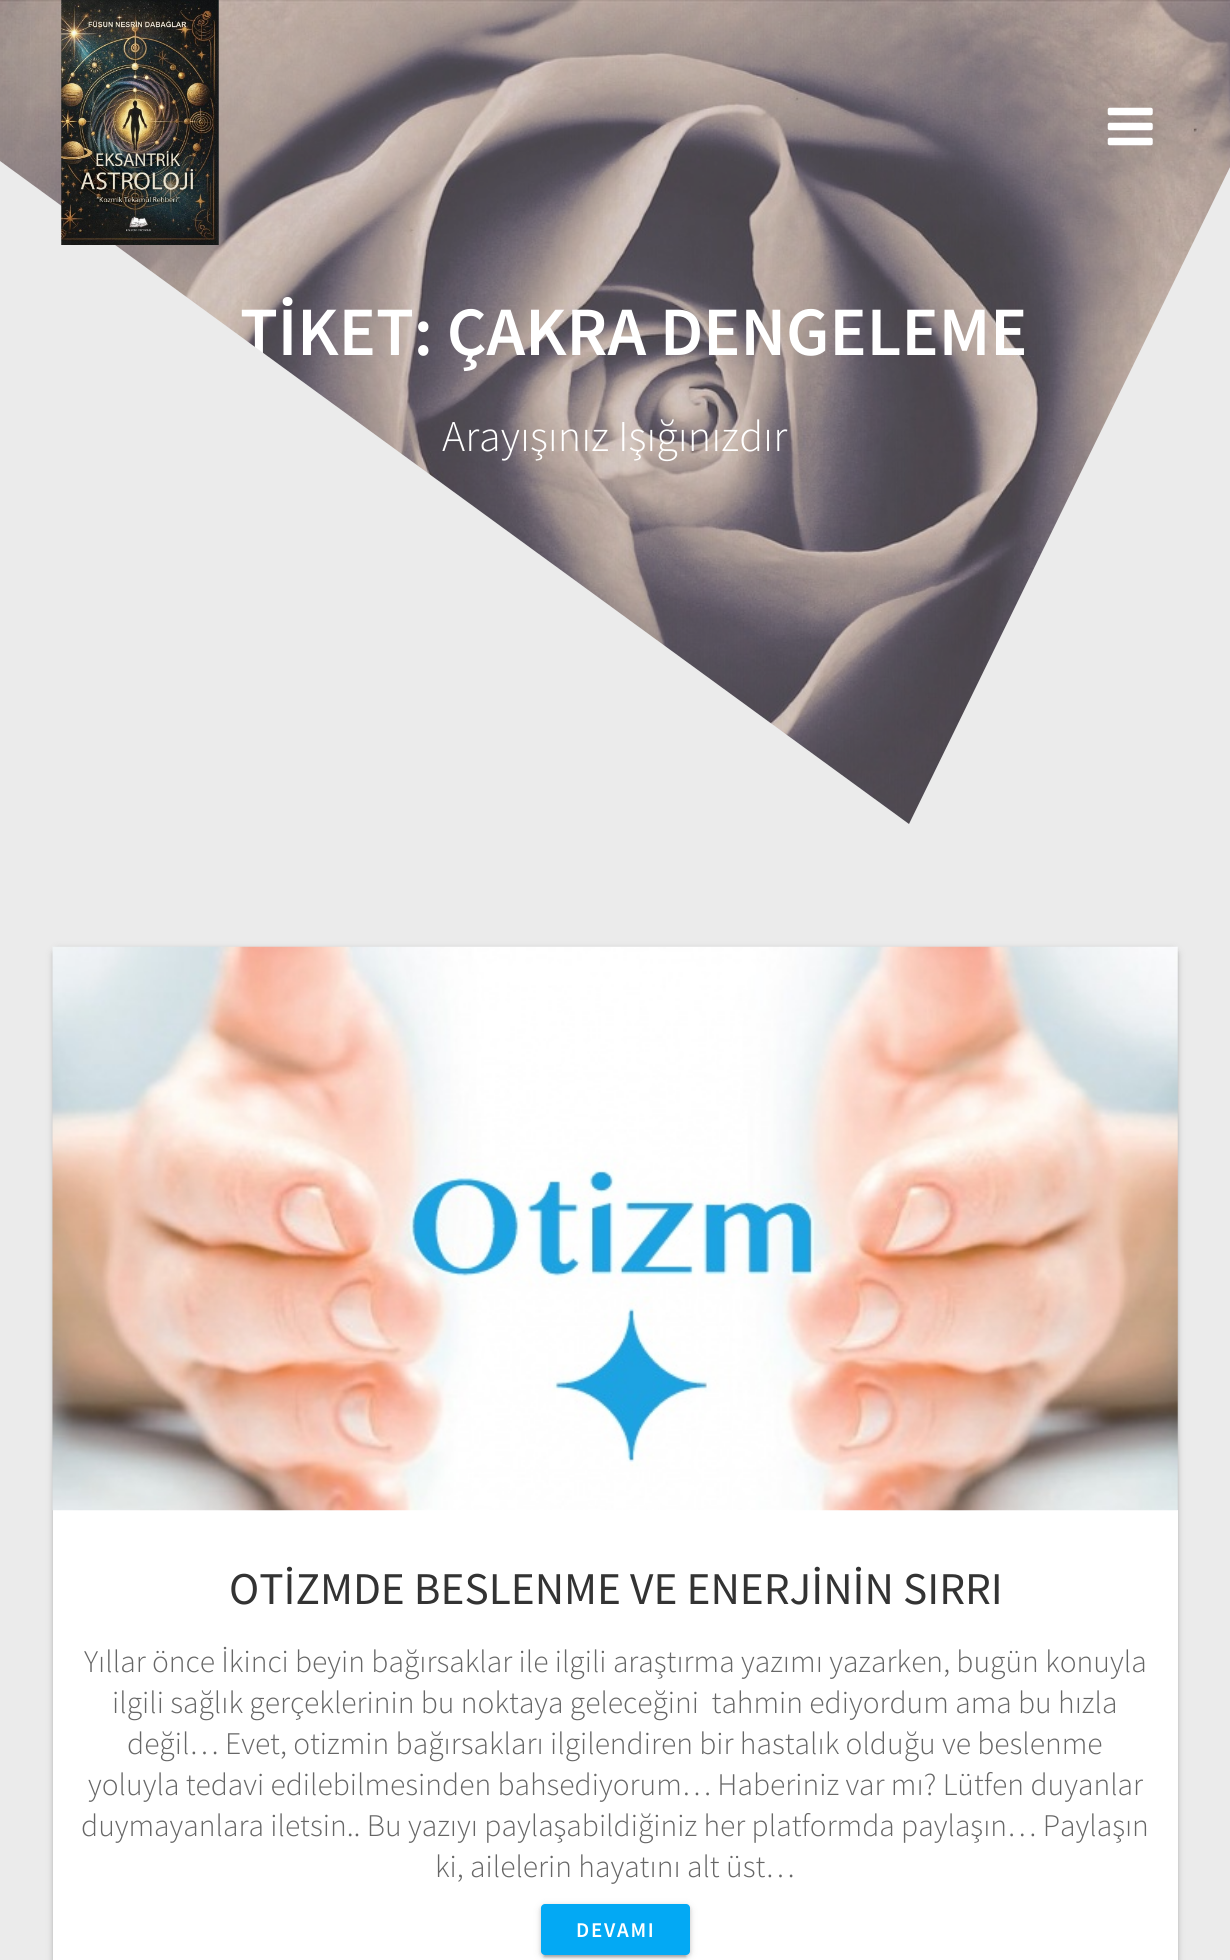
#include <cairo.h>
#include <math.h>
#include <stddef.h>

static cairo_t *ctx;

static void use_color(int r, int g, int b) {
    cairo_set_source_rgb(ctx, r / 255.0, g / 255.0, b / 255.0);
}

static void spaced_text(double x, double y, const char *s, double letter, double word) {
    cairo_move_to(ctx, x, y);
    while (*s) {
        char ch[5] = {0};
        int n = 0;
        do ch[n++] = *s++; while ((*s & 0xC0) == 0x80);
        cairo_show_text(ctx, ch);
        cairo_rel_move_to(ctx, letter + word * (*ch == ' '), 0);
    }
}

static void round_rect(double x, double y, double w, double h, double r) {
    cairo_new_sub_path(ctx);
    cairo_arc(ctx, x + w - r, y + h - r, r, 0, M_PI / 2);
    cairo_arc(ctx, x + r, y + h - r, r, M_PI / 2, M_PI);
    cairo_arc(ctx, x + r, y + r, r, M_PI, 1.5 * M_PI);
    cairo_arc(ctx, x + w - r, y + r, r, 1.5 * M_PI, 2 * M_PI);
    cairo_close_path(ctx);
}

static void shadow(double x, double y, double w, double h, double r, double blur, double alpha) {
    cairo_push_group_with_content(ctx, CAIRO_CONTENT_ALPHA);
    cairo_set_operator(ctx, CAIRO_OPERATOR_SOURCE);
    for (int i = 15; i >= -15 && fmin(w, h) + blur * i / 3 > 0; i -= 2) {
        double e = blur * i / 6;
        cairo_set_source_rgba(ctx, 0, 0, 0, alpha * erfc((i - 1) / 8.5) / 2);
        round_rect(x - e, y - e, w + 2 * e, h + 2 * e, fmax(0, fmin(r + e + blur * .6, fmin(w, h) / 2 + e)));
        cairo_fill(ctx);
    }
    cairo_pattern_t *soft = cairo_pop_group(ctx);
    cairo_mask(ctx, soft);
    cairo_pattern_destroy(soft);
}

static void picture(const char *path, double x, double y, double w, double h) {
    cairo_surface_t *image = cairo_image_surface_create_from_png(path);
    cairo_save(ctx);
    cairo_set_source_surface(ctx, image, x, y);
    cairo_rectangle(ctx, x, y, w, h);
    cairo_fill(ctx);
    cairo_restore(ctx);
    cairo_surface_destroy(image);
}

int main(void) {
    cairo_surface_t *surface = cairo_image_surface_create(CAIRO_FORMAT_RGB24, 1230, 1960);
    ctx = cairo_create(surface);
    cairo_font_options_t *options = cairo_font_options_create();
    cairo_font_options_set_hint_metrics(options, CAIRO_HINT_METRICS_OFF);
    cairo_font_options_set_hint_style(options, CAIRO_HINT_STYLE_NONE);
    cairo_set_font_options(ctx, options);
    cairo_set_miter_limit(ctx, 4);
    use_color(235, 235, 235);
    cairo_paint(ctx);
    picture("img3.png", 0, 0, 1230, 824);
    cairo_select_font_face(ctx, "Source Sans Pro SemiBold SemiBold", CAIRO_FONT_SLANT_NORMAL, CAIRO_FONT_WEIGHT_NORMAL);
    cairo_set_font_size(ctx, 69.25);
    use_color(255, 255, 255);
    cairo_move_to(ctx, 240, 355);
    cairo_show_text(ctx, "TİKET: ÇAKRA DENGELEME");
    cairo_select_font_face(ctx, "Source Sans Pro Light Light", CAIRO_FONT_SLANT_NORMAL, CAIRO_FONT_WEIGHT_NORMAL);
    cairo_set_font_size(ctx, 44);
    cairo_move_to(ctx, 442, 451);
    cairo_show_text(ctx, "Arayışınız Işığınızdır");
    use_color(235, 235, 235);
    cairo_new_path(ctx);
    cairo_move_to(ctx, 909, 824);
    cairo_line_to(ctx, 0, 161);
    cairo_line_to(ctx, 0, 861);
    cairo_line_to(ctx, 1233, 861);
    cairo_line_to(ctx, 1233, 161);
    cairo_close_path(ctx);
    cairo_fill(ctx);
    picture("img1.png", 61, 0, 158, 245);
    picture("img2.png", 1107, 107, 46, 39);
    use_color(0, 0, 0);
    shadow(53, 949, 1125, 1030, 5, 4.5, 0.12);
    shadow(53, 949, 1125, 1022, 5, 2, 0.14);
    use_color(255, 255, 255);
    cairo_rectangle(ctx, 53, 1510, 1125, 450);
    cairo_fill(ctx);
    picture("img4.png", 52, 946, 1126, 565);
    cairo_select_font_face(ctx, "Source Sans Pro", CAIRO_FONT_SLANT_NORMAL, CAIRO_FONT_WEIGHT_NORMAL);
    cairo_set_font_size(ctx, 45.4);
    use_color(51, 51, 51);
    cairo_move_to(ctx, 229, 1604);
    cairo_show_text(ctx, "OTİZMDE BESLENME VE ENERJİNİN SIRRI");
    cairo_select_font_face(ctx, "Source Sans Pro Light Light", CAIRO_FONT_SLANT_NORMAL, CAIRO_FONT_WEIGHT_NORMAL);
    cairo_set_font_size(ctx, 31.5);
    use_color(102, 102, 102);
    cairo_move_to(ctx, 84, 1672);
    cairo_show_text(ctx, "Yıllar önce İkinci beyin bağırsaklar ile ilgili araştırma yazımı yazarken, bugün konuyla");
    cairo_move_to(ctx, 112, 1713);
    cairo_show_text(ctx, "ilgili sağlık gerçeklerinin bu noktaya geleceğini  tahmin ediyordum ama bu hızla");
    cairo_move_to(ctx, 127, 1754);
    cairo_show_text(ctx, "değil… Evet, otizmin bağırsakları ilgilendiren bir hastalık olduğu ve beslenme");
    cairo_move_to(ctx, 88, 1795);
    cairo_show_text(ctx, "yoluyla tedavi edilebilmesinden bahsediyorum… Haberiniz var mı? Lütfen duyanlar");
    cairo_move_to(ctx, 81, 1836);
    cairo_show_text(ctx, "duymayanlara iletsin.. Bu yazıyı paylaşabildiğiniz her platformda paylaşın… Paylaşın");
    cairo_move_to(ctx, 435, 1877);
    cairo_show_text(ctx, "ki, ailelerin hayatını alt üst…");
    use_color(0, 0, 0);
    shadow(541, 1906, 149, 51, 4, 4.5, 0.12);
    shadow(544, 1913, 142, 44, 0, 1, 0.2);
    shadow(541, 1906, 149, 51, 4, 2, 0.14);
    use_color(3, 169, 244);
    round_rect(541, 1904, 149, 51, 4);
    cairo_fill(ctx);
    cairo_select_font_face(ctx, "Source Sans Pro SemiBold SemiBold", CAIRO_FONT_SLANT_NORMAL, CAIRO_FONT_WEIGHT_NORMAL);
    cairo_set_font_size(ctx, 21);
    use_color(255, 255, 255);
    spaced_text(576, 1937, "DEVAMI", 1.75, 0);
    cairo_surface_write_to_png(surface, "result.png");
    cairo_font_options_destroy(options);
    cairo_destroy(ctx);
    cairo_surface_destroy(surface);
    return 0;
}
